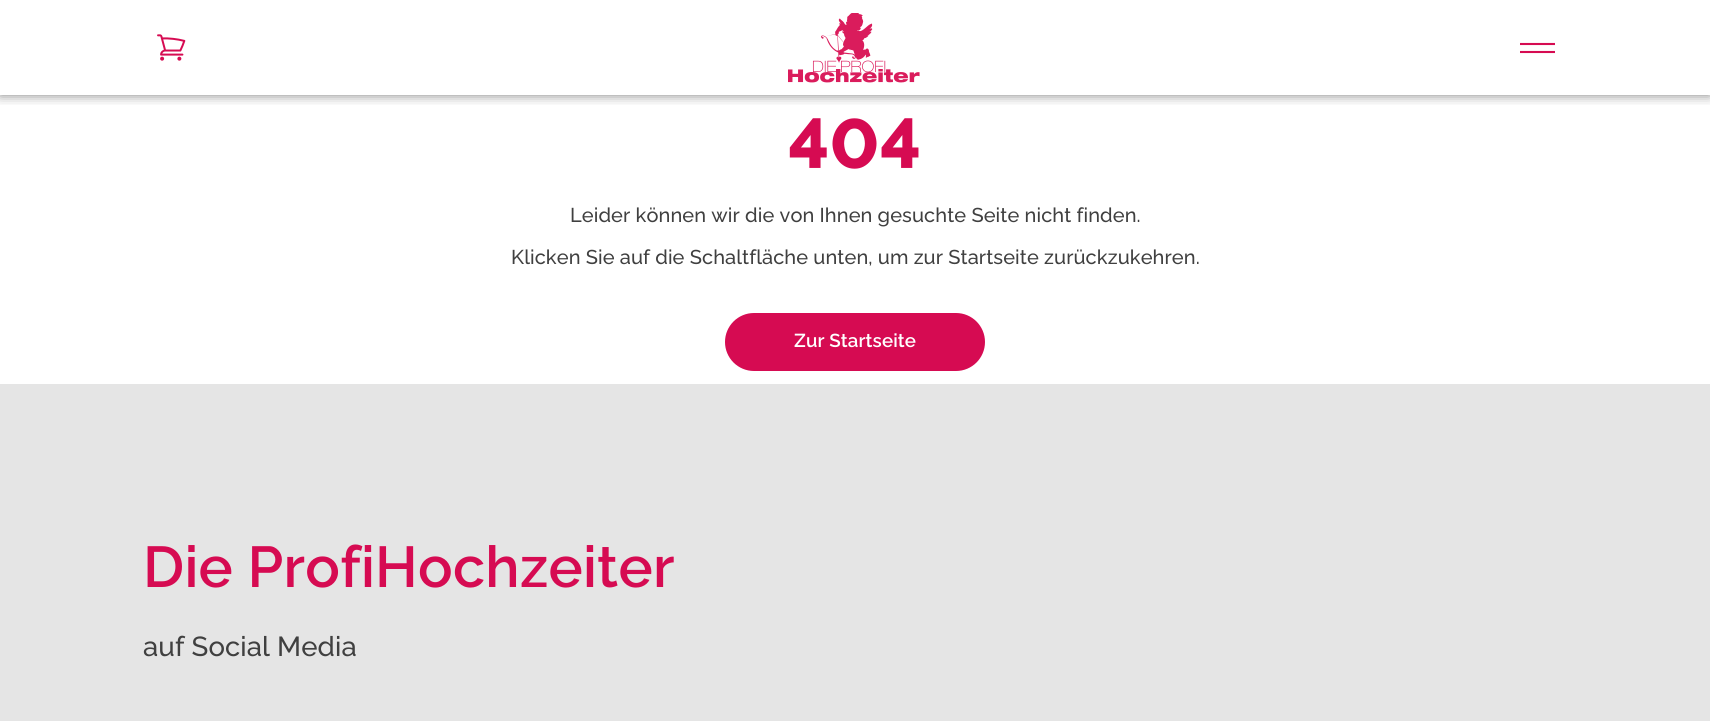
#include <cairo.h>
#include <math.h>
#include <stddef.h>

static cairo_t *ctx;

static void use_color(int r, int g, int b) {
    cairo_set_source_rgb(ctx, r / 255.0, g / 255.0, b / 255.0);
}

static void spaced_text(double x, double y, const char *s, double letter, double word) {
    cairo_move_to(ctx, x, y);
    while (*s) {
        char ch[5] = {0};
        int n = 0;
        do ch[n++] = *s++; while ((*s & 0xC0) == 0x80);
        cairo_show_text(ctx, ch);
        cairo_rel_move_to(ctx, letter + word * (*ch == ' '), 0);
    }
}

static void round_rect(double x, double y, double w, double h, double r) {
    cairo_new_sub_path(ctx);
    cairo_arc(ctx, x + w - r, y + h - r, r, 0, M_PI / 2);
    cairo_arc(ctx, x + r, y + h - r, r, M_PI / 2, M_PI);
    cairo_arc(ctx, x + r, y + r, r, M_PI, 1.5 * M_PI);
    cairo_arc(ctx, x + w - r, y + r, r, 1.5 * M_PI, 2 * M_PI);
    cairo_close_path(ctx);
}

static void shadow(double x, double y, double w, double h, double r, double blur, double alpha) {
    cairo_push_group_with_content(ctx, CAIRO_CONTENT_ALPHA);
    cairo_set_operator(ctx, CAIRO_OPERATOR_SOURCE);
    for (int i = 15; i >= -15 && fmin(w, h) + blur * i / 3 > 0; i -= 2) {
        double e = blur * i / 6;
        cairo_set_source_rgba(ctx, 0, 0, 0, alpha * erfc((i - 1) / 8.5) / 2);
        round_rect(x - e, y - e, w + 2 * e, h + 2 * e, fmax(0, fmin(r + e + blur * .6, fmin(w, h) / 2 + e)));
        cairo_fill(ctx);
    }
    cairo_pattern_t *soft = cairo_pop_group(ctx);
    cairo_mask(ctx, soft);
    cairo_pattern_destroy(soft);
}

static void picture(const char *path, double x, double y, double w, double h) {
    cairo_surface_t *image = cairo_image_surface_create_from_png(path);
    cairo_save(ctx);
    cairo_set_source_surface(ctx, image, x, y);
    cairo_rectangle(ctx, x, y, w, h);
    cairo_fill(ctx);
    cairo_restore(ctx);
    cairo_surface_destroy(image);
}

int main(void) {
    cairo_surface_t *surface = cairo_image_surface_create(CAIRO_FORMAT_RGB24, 1710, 721);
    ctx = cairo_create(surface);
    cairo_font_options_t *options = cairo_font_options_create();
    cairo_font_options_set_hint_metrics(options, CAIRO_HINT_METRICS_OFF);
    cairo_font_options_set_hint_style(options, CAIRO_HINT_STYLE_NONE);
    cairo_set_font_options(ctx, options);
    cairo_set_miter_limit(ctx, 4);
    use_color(255, 255, 255);
    cairo_paint(ctx);
    cairo_save(ctx);
    cairo_rectangle(ctx, 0, 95, 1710, 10);
    cairo_clip(ctx);
    use_color(0, 0, 0);
    shadow(0, 0, 1710, 95, 0, 6, 0.5);
    cairo_restore(ctx);
    picture("img1.png", 157, 34, 29, 27);
    picture("img2.png", 788, 13, 132, 70);
    cairo_save(ctx);
    cairo_rectangle(ctx, 1520, 31, 35, 33);
    cairo_clip(ctx);
    cairo_new_path(ctx);
    cairo_move_to(ctx, 1520, 44);
    cairo_line_to(ctx, 1556, 44);
    cairo_move_to(ctx, 1520, 52);
    cairo_line_to(ctx, 1556, 52);
    use_color(214, 11, 82);
    cairo_set_line_width(ctx, 2.1);
    cairo_stroke(ctx);
    cairo_restore(ctx);
    cairo_select_font_face(ctx, "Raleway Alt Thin", CAIRO_FONT_SLANT_NORMAL, CAIRO_FONT_WEIGHT_NORMAL);
    cairo_set_font_size(ctx, 70);
    use_color(214, 11, 82);
    spaced_text(788, 168, "404", 0.5, 0);
    cairo_select_font_face(ctx, "Raleway Thin", CAIRO_FONT_SLANT_NORMAL, CAIRO_FONT_WEIGHT_NORMAL);
    cairo_set_font_size(ctx, 20);
    use_color(64, 64, 64);
    spaced_text(570, 222, "Leider können wir die von Ihnen gesuchte Seite nicht finden.", 0.1, 0);
    spaced_text(511, 264, "Klicken Sie auf die Schaltfläche unten, um zur Startseite zurückzukehren.", 0.1, 0);
    use_color(214, 11, 82);
    round_rect(725, 313, 260, 58, 29);
    cairo_fill(ctx);
    cairo_select_font_face(ctx, "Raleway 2 Thin", CAIRO_FONT_SLANT_NORMAL, CAIRO_FONT_WEIGHT_NORMAL);
    cairo_set_font_size(ctx, 18.75);
    use_color(255, 255, 255);
    spaced_text(794, 347, "Zur Startseite", 0.1, 0);
    use_color(229, 229, 229);
    cairo_rectangle(ctx, 0, 384, 1710, 337);
    cairo_fill(ctx);
    cairo_set_font_size(ctx, 57.5);
    use_color(214, 11, 82);
    spaced_text(143, 587, "Die ProfiHochzeiter", 0.25, 0);
    cairo_select_font_face(ctx, "Raleway Thin", CAIRO_FONT_SLANT_NORMAL, CAIRO_FONT_WEIGHT_NORMAL);
    cairo_set_font_size(ctx, 27.5);
    use_color(64, 64, 64);
    spaced_text(143, 656, "auf Social Media", 0.1, 0);
    cairo_surface_write_to_png(surface, "result.png");
    cairo_font_options_destroy(options);
    cairo_destroy(ctx);
    cairo_surface_destroy(surface);
    return 0;
}
